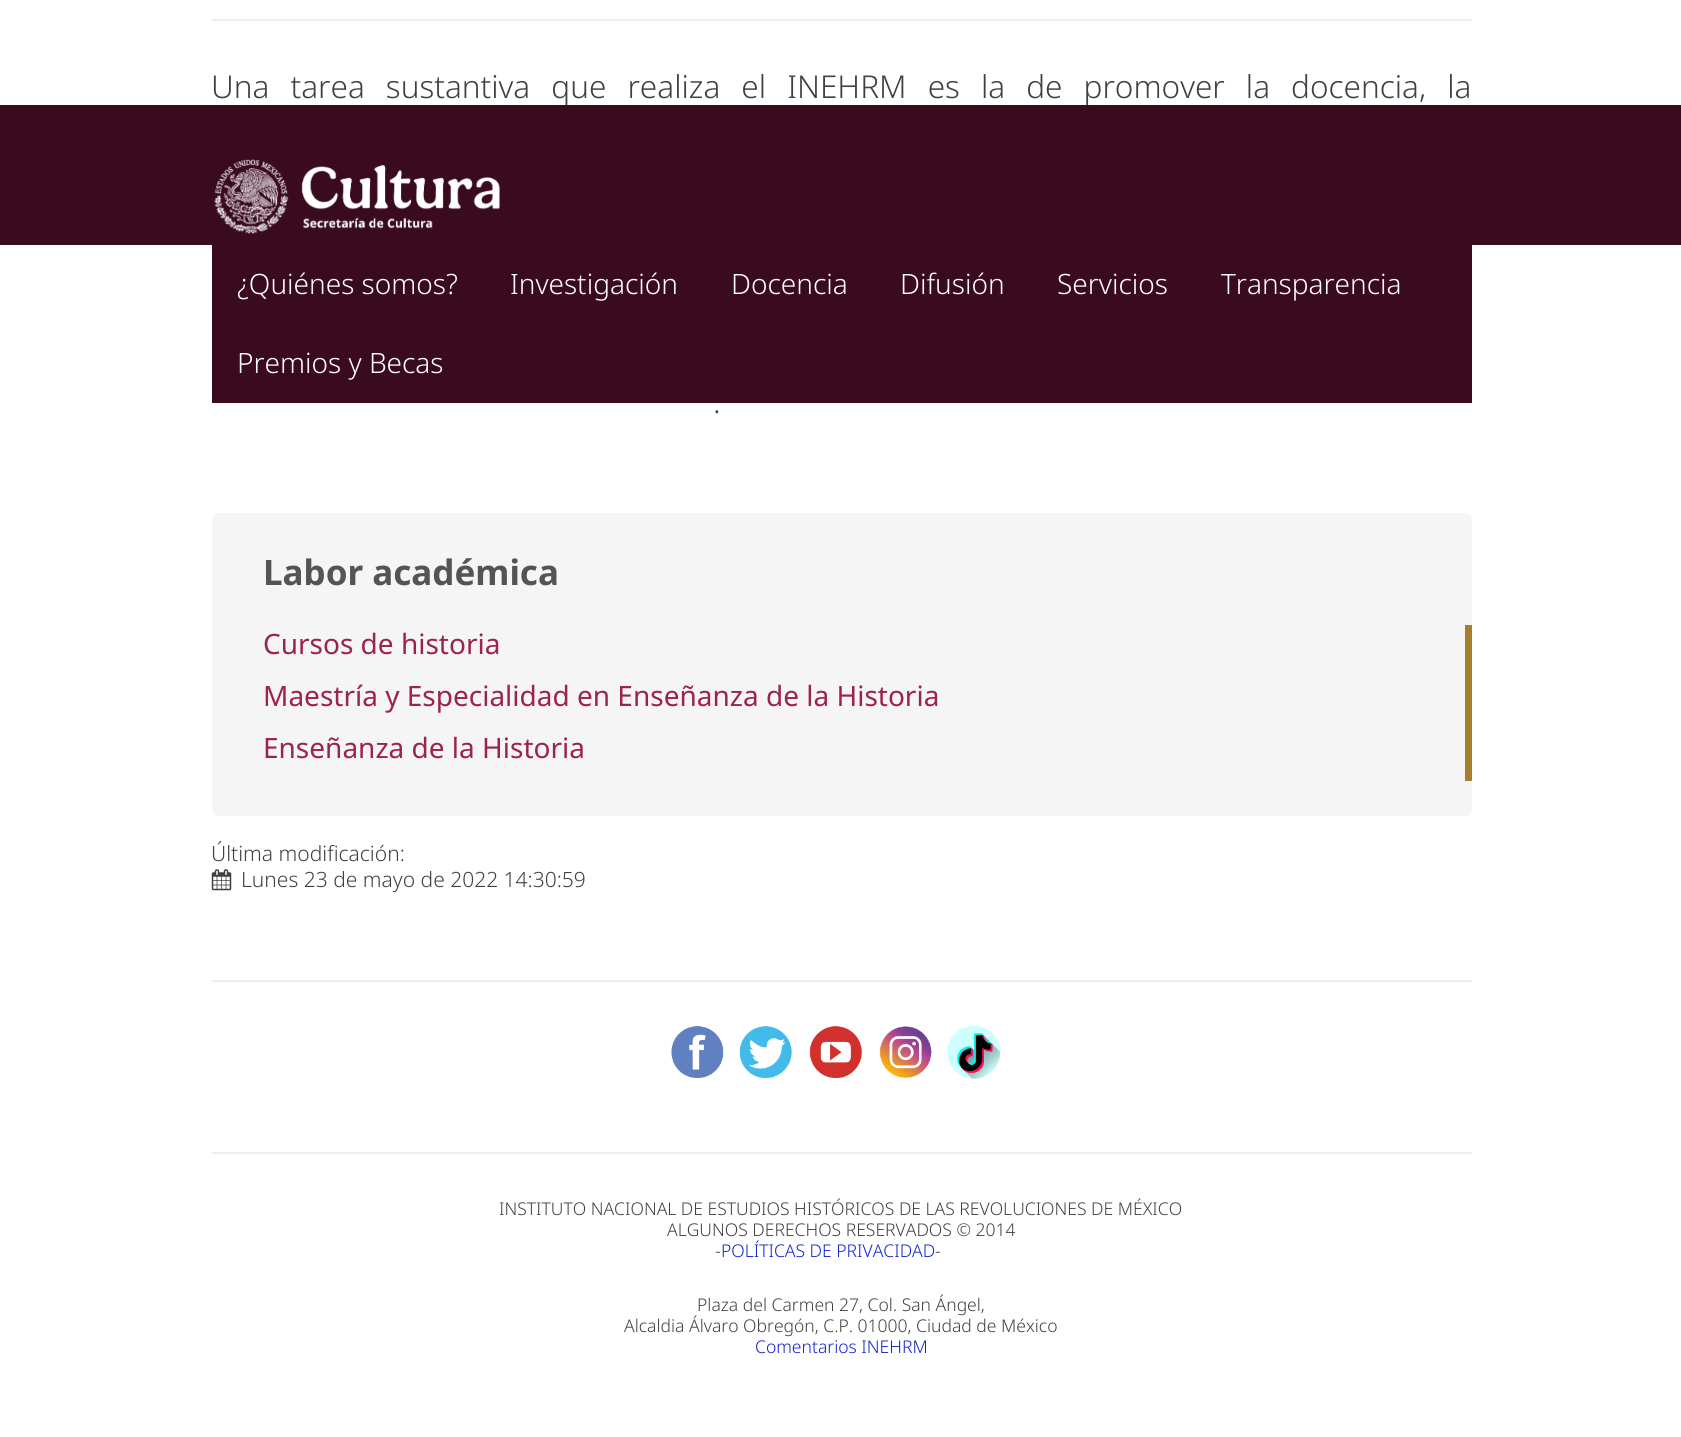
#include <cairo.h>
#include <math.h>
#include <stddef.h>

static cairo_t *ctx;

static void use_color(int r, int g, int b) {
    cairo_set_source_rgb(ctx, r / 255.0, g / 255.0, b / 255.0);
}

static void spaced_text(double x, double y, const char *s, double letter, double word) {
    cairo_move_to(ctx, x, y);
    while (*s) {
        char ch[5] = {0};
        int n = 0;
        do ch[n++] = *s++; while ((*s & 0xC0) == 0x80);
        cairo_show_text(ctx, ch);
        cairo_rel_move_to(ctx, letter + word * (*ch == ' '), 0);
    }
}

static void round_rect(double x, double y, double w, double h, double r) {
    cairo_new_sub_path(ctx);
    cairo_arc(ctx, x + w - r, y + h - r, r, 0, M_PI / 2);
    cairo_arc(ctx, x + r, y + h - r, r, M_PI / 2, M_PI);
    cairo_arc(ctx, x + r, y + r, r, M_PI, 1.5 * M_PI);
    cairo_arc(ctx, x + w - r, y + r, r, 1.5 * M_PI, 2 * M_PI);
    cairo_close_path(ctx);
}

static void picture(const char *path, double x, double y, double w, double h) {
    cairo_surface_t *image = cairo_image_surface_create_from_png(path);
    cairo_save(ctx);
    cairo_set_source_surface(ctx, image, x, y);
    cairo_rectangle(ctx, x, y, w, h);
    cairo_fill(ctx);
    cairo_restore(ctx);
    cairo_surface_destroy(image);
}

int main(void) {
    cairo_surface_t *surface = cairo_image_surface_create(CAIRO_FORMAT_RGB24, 1681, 1437);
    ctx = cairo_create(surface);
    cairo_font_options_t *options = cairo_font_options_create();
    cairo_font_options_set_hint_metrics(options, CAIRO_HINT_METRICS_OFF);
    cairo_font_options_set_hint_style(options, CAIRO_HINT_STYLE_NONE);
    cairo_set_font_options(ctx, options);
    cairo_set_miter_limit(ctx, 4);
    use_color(255, 255, 255);
    cairo_paint(ctx);
    use_color(238, 238, 238);
    cairo_rectangle(ctx, 212, 19, 1260, 2);
    cairo_fill(ctx);
    cairo_select_font_face(ctx, "Noto Sans Light", CAIRO_FONT_SLANT_NORMAL, CAIRO_FONT_WEIGHT_NORMAL);
    cairo_set_font_size(ctx, 31.5);
    use_color(64, 64, 65);
    spaced_text(211, 98, "Una tarea sustantiva que realiza el INEHRM es la de promover la docencia, la", 0, 12.9);
    cairo_move_to(ctx, 713, 413);
    cairo_show_text(ctx, ".");
    use_color(245, 245, 245);
    round_rect(212, 513, 1260, 303, 7);
    cairo_fill(ctx);
    cairo_select_font_face(ctx, "Noto Sans", CAIRO_FONT_SLANT_NORMAL, CAIRO_FONT_WEIGHT_BOLD);
    cairo_set_font_size(ctx, 35);
    use_color(84, 84, 84);
    cairo_move_to(ctx, 263, 585);
    cairo_show_text(ctx, "Labor académica");
    use_color(165, 127, 44);
    cairo_rectangle(ctx, 1465, 625, 7, 156);
    cairo_fill(ctx);
    cairo_select_font_face(ctx, "Noto Sans", CAIRO_FONT_SLANT_NORMAL, CAIRO_FONT_WEIGHT_NORMAL);
    cairo_set_font_size(ctx, 28);
    use_color(157, 36, 73);
    cairo_move_to(ctx, 263, 654);
    cairo_show_text(ctx, "Cursos de historia");
    cairo_move_to(ctx, 263, 706);
    cairo_show_text(ctx, "Maestría y Especialidad en Enseñanza de la Historia");
    cairo_move_to(ctx, 263, 758);
    cairo_show_text(ctx, "Enseñanza de la Historia");
    cairo_select_font_face(ctx, "Noto Sans Light", CAIRO_FONT_SLANT_NORMAL, CAIRO_FONT_WEIGHT_NORMAL);
    cairo_set_font_size(ctx, 21);
    use_color(64, 64, 65);
    cairo_move_to(ctx, 211, 861);
    cairo_show_text(ctx, "Última modificación:");
    picture("img1.png", 211, 869, 21, 22);
    cairo_move_to(ctx, 241, 887);
    cairo_show_text(ctx, "Lunes 23 de mayo de 2022 14:30:59");
    use_color(238, 238, 238);
    cairo_rectangle(ctx, 212, 980, 1260, 2);
    cairo_fill(ctx);
    picture("img2.png", 671, 1026, 53, 52);
    picture("img3.png", 739, 1026, 53, 52);
    picture("img4.png", 809, 1026, 53, 52);
    picture("img5.png", 879, 1026, 53, 52);
    picture("img6.png", 947, 1025, 54, 54);
    cairo_rectangle(ctx, 212, 1152, 1260, 2);
    cairo_fill(ctx);
    cairo_set_font_size(ctx, 17.5);
    use_color(64, 64, 65);
    cairo_move_to(ctx, 499, 1215);
    cairo_show_text(ctx, "INSTITUTO NACIONAL DE ESTUDIOS HISTÓRICOS DE LAS REVOLUCIONES DE MÉXICO");
    cairo_move_to(ctx, 667, 1236);
    cairo_show_text(ctx, "ALGUNOS DERECHOS RESERVADOS © 2014");
    cairo_move_to(ctx, 715, 1257);
    cairo_show_text(ctx, "-");
    use_color(17, 34, 204);
    cairo_move_to(ctx, 721, 1257);
    cairo_show_text(ctx, "POLÍTICAS DE PRIVACIDAD");
    use_color(64, 64, 65);
    cairo_move_to(ctx, 935, 1257);
    cairo_show_text(ctx, "-");
    cairo_move_to(ctx, 697, 1311);
    cairo_show_text(ctx, "Plaza del Carmen 27, Col. San Ángel,");
    cairo_move_to(ctx, 624, 1332);
    cairo_show_text(ctx, "Alcaldia Álvaro Obregón, C.P. 01000, Ciudad de México");
    use_color(17, 34, 204);
    cairo_move_to(ctx, 755, 1353);
    cairo_show_text(ctx, "Comentarios INEHRM");
    use_color(58, 11, 31);
    cairo_rectangle(ctx, 0, 105, 1681, 140);
    cairo_fill(ctx);
    picture("img7.png", 214, 159, 286, 75);
    cairo_rectangle(ctx, 212, 245, 1260, 158);
    cairo_fill(ctx);
    cairo_set_font_size(ctx, 28);
    use_color(255, 255, 255);
    cairo_move_to(ctx, 237, 294);
    cairo_show_text(ctx, "¿Quiénes somos?");
    cairo_move_to(ctx, 510, 294);
    cairo_show_text(ctx, "Investigación");
    cairo_move_to(ctx, 731, 294);
    cairo_show_text(ctx, "Docencia");
    cairo_move_to(ctx, 900, 294);
    cairo_show_text(ctx, "Difusión");
    cairo_move_to(ctx, 1057, 294);
    cairo_show_text(ctx, "Servicios");
    cairo_move_to(ctx, 1221, 294);
    cairo_show_text(ctx, "Transparencia");
    cairo_move_to(ctx, 237, 373);
    cairo_show_text(ctx, "Premios y Becas");
    cairo_surface_write_to_png(surface, "result.png");
    cairo_font_options_destroy(options);
    cairo_destroy(ctx);
    cairo_surface_destroy(surface);
    return 0;
}
